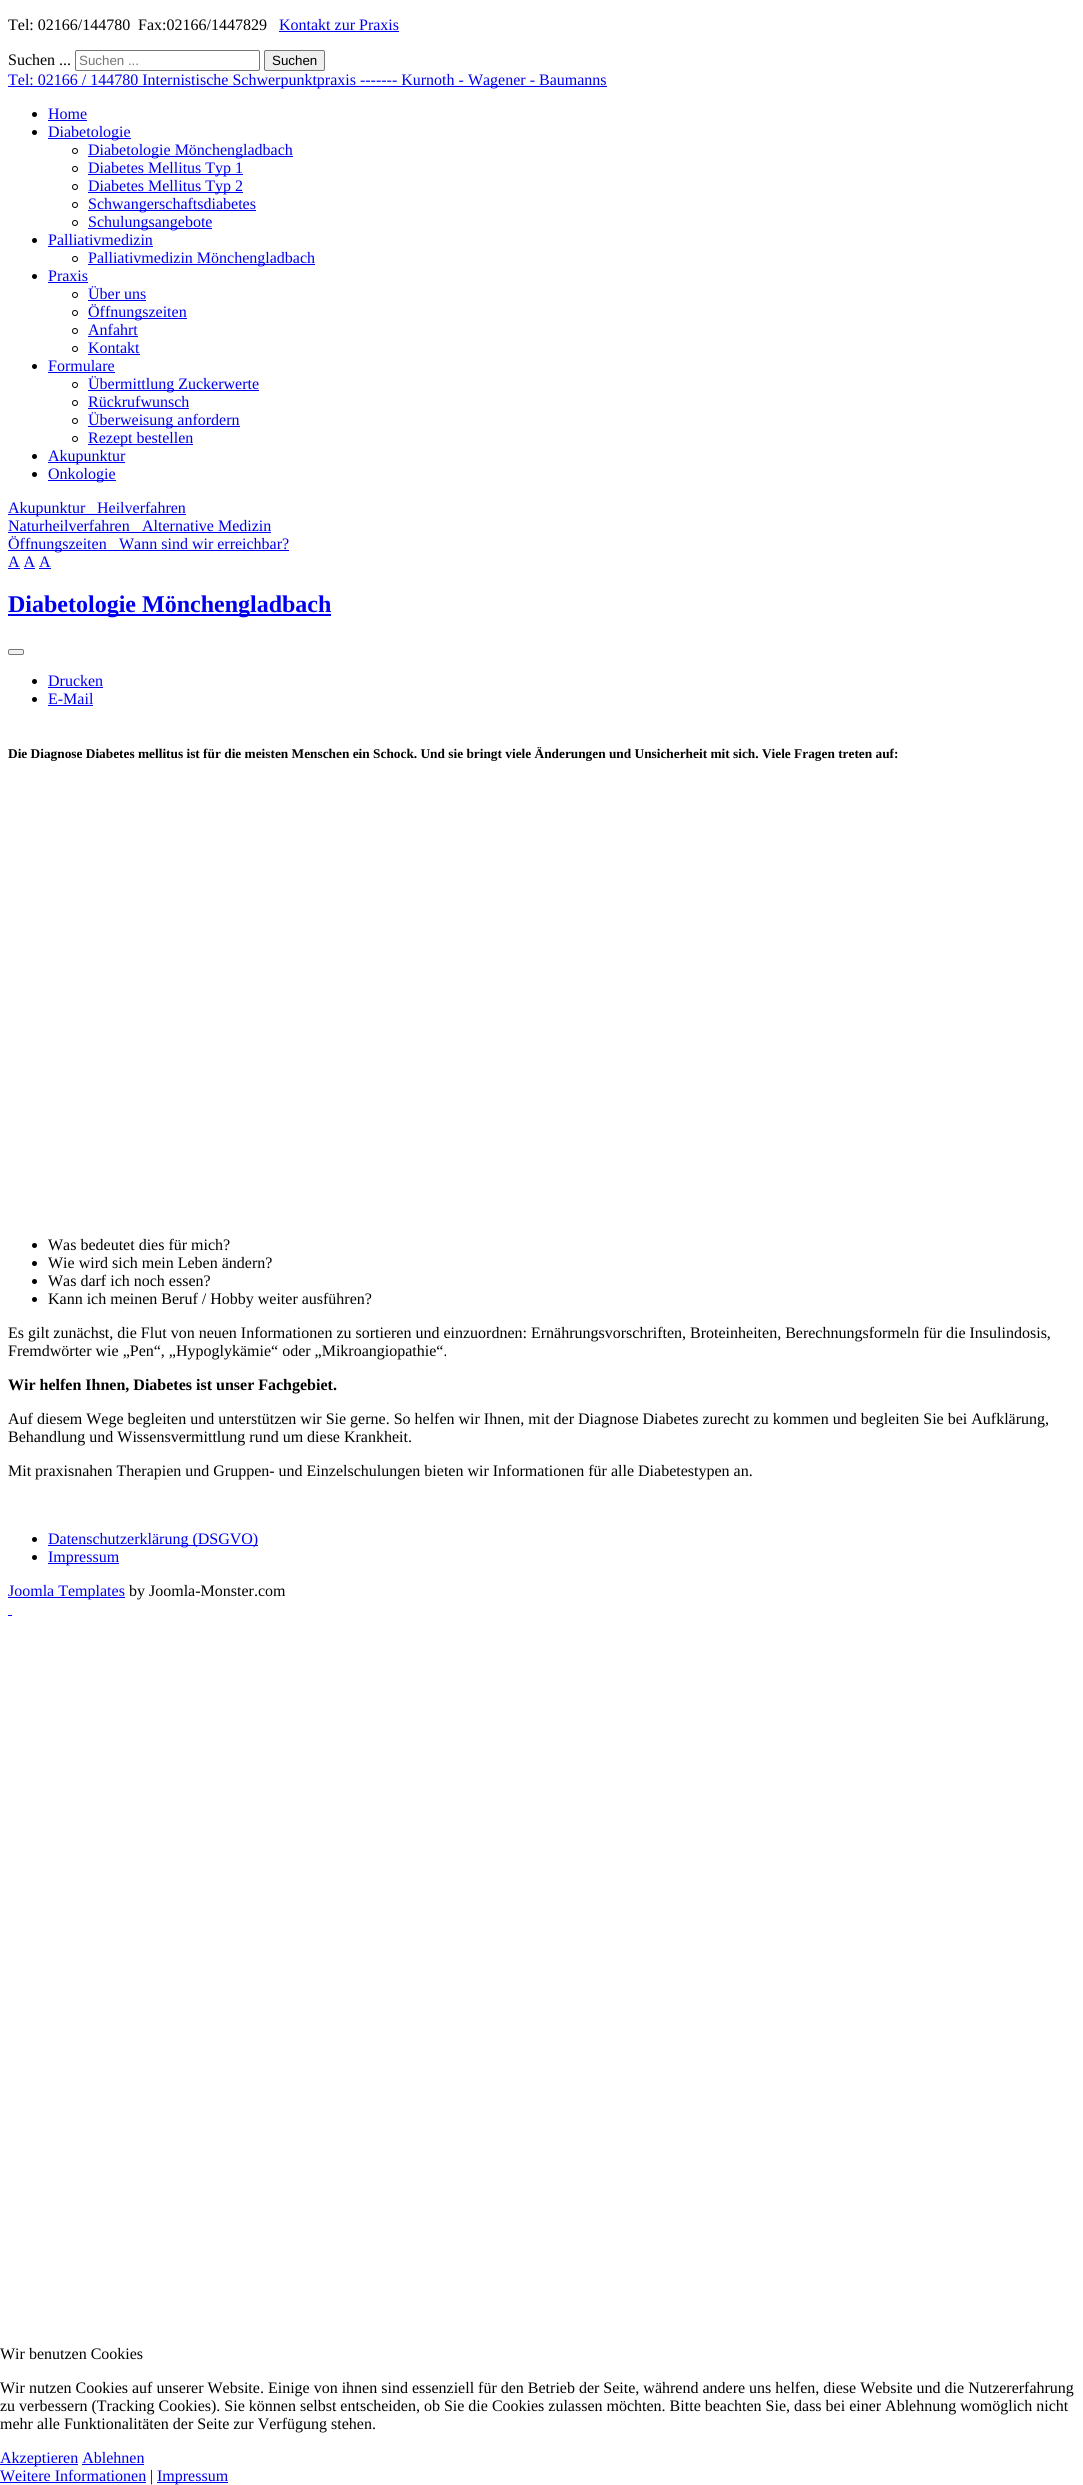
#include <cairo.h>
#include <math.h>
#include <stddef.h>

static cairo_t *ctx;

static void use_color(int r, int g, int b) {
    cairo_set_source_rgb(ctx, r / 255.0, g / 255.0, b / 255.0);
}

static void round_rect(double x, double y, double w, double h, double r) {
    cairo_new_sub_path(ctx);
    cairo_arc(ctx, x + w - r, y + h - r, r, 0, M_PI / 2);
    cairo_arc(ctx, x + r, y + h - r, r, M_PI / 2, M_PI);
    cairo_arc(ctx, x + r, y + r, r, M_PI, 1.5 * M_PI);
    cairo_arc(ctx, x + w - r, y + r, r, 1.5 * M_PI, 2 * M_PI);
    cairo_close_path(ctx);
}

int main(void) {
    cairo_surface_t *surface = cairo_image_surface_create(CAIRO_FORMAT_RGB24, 1083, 2485);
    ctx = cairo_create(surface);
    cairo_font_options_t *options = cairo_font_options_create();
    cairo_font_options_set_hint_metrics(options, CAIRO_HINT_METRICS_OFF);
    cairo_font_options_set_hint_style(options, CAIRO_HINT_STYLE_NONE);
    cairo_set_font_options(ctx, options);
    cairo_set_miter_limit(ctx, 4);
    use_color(255, 255, 255);
    cairo_paint(ctx);
    cairo_select_font_face(ctx, "Liberation Serif", CAIRO_FONT_SLANT_NORMAL, CAIRO_FONT_WEIGHT_NORMAL);
    cairo_set_font_size(ctx, 16);
    use_color(0, 0, 0);
    cairo_move_to(ctx, 8, 30);
    cairo_show_text(ctx, "Tel: 02166/144780");
    cairo_move_to(ctx, 138, 30);
    cairo_show_text(ctx, "Fax:02166/1447829");
    use_color(0, 0, 238);
    cairo_move_to(ctx, 279, 30);
    cairo_show_text(ctx, "Kontakt zur Praxis");
    cairo_rectangle(ctx, 279, 31, 120, 1);
    cairo_fill(ctx);
    use_color(0, 0, 0);
    cairo_move_to(ctx, 8, 65);
    cairo_show_text(ctx, "Suchen ...");
    round_rect(75.5, 50.5, 184, 20, 1.5);
    use_color(118, 118, 118);
    cairo_set_line_width(ctx, 1);
    cairo_stroke(ctx);
    cairo_select_font_face(ctx, "Liberation Sans", CAIRO_FONT_SLANT_NORMAL, CAIRO_FONT_WEIGHT_NORMAL);
    cairo_set_font_size(ctx, 13.33);
    use_color(117, 117, 117);
    cairo_move_to(ctx, 79, 65);
    cairo_show_text(ctx, "Suchen ...");
    use_color(239, 239, 239);
    round_rect(264.5, 50.5, 60, 20, 1.5);
    cairo_fill_preserve(ctx);
    use_color(118, 118, 118);
    cairo_stroke(ctx);
    use_color(0, 0, 0);
    cairo_move_to(ctx, 272, 65);
    cairo_show_text(ctx, "Suchen");
    use_color(0, 0, 238);
    cairo_rectangle(ctx, 8, 86, 599, 1);
    cairo_fill(ctx);
    cairo_select_font_face(ctx, "Liberation Serif", CAIRO_FONT_SLANT_NORMAL, CAIRO_FONT_WEIGHT_NORMAL);
    cairo_set_font_size(ctx, 16);
    cairo_move_to(ctx, 8, 85);
    cairo_show_text(ctx, "Tel: 02166 / 144780 Internistische Schwerpunktpraxis ------- Kurnoth - Wagener - Baumanns");
    use_color(0, 0, 0);
    cairo_new_path(ctx);
    cairo_arc(ctx, 34.5, 114.5, 2.5, 0, 2 * M_PI);
    cairo_fill(ctx);
    use_color(0, 0, 238);
    cairo_move_to(ctx, 48, 119);
    cairo_show_text(ctx, "Home");
    cairo_rectangle(ctx, 48, 120, 39, 1);
    cairo_fill(ctx);
    use_color(0, 0, 0);
    cairo_arc(ctx, 34.5, 132.5, 2.5, 0, 2 * M_PI);
    cairo_fill(ctx);
    use_color(0, 0, 238);
    cairo_rectangle(ctx, 48, 138, 83, 1);
    cairo_fill(ctx);
    cairo_move_to(ctx, 48, 137);
    cairo_show_text(ctx, "Diabetologie");
    cairo_new_path(ctx);
    cairo_arc(ctx, 75, 151, 2.5, 0, 2 * M_PI);
    use_color(0, 0, 0);
    cairo_stroke(ctx);
    use_color(0, 0, 238);
    cairo_rectangle(ctx, 88, 156, 205, 1);
    cairo_fill(ctx);
    cairo_move_to(ctx, 88, 155);
    cairo_show_text(ctx, "Diabetologie Mönchengladbach");
    cairo_new_path(ctx);
    cairo_arc(ctx, 75, 169, 2.5, 0, 2 * M_PI);
    use_color(0, 0, 0);
    cairo_stroke(ctx);
    use_color(0, 0, 238);
    cairo_rectangle(ctx, 88, 174, 155, 1);
    cairo_fill(ctx);
    cairo_move_to(ctx, 88, 173);
    cairo_show_text(ctx, "Diabetes Mellitus Typ 1");
    cairo_new_path(ctx);
    cairo_arc(ctx, 75, 187, 2.5, 0, 2 * M_PI);
    use_color(0, 0, 0);
    cairo_stroke(ctx);
    use_color(0, 0, 238);
    cairo_rectangle(ctx, 88, 192, 155, 1);
    cairo_fill(ctx);
    cairo_move_to(ctx, 88, 191);
    cairo_show_text(ctx, "Diabetes Mellitus Typ 2");
    cairo_new_path(ctx);
    cairo_arc(ctx, 75, 205, 2.5, 0, 2 * M_PI);
    use_color(0, 0, 0);
    cairo_stroke(ctx);
    use_color(0, 0, 238);
    cairo_rectangle(ctx, 88, 210, 168, 1);
    cairo_fill(ctx);
    cairo_move_to(ctx, 88, 209);
    cairo_show_text(ctx, "Schwangerschaftsdiabetes");
    cairo_new_path(ctx);
    cairo_arc(ctx, 75, 223, 2.5, 0, 2 * M_PI);
    use_color(0, 0, 0);
    cairo_stroke(ctx);
    use_color(0, 0, 238);
    cairo_rectangle(ctx, 88, 228, 124, 1);
    cairo_fill(ctx);
    cairo_move_to(ctx, 88, 227);
    cairo_show_text(ctx, "Schulungsangebote");
    use_color(0, 0, 0);
    cairo_new_path(ctx);
    cairo_arc(ctx, 34.5, 240.5, 2.5, 0, 2 * M_PI);
    cairo_fill(ctx);
    use_color(0, 0, 238);
    cairo_move_to(ctx, 48, 245);
    cairo_show_text(ctx, "Palliativmedizin");
    cairo_rectangle(ctx, 48, 246, 105, 1);
    cairo_fill(ctx);
    cairo_arc(ctx, 75, 259, 2.5, 0, 2 * M_PI);
    use_color(0, 0, 0);
    cairo_stroke(ctx);
    use_color(0, 0, 238);
    cairo_rectangle(ctx, 88, 264, 227, 1);
    cairo_fill(ctx);
    cairo_move_to(ctx, 88, 263);
    cairo_show_text(ctx, "Palliativmedizin Mönchengladbach");
    use_color(0, 0, 0);
    cairo_new_path(ctx);
    cairo_arc(ctx, 34.5, 276.5, 2.5, 0, 2 * M_PI);
    cairo_fill(ctx);
    use_color(0, 0, 238);
    cairo_move_to(ctx, 48, 281);
    cairo_show_text(ctx, "Praxis");
    cairo_rectangle(ctx, 48, 282, 40, 1);
    cairo_fill(ctx);
    cairo_arc(ctx, 75, 295, 2.5, 0, 2 * M_PI);
    use_color(0, 0, 0);
    cairo_stroke(ctx);
    use_color(0, 0, 238);
    cairo_move_to(ctx, 88, 299);
    cairo_show_text(ctx, "Über uns");
    cairo_rectangle(ctx, 88, 300, 58, 1);
    cairo_fill(ctx);
    cairo_arc(ctx, 75, 313, 2.5, 0, 2 * M_PI);
    use_color(0, 0, 0);
    cairo_stroke(ctx);
    use_color(0, 0, 238);
    cairo_rectangle(ctx, 88, 318, 99, 1);
    cairo_fill(ctx);
    cairo_move_to(ctx, 88, 317);
    cairo_show_text(ctx, "Öffnungszeiten");
    cairo_new_path(ctx);
    cairo_arc(ctx, 75, 331, 2.5, 0, 2 * M_PI);
    use_color(0, 0, 0);
    cairo_stroke(ctx);
    use_color(0, 0, 238);
    cairo_move_to(ctx, 88, 335);
    cairo_show_text(ctx, "Anfahrt");
    cairo_rectangle(ctx, 88, 336, 50, 1);
    cairo_fill(ctx);
    cairo_arc(ctx, 75, 349, 2.5, 0, 2 * M_PI);
    use_color(0, 0, 0);
    cairo_stroke(ctx);
    use_color(0, 0, 238);
    cairo_move_to(ctx, 88, 353);
    cairo_show_text(ctx, "Kontakt");
    cairo_rectangle(ctx, 88, 354, 52, 1);
    cairo_fill(ctx);
    use_color(0, 0, 0);
    cairo_arc(ctx, 34.5, 366.5, 2.5, 0, 2 * M_PI);
    cairo_fill(ctx);
    use_color(0, 0, 238);
    cairo_move_to(ctx, 48, 371);
    cairo_show_text(ctx, "Formulare");
    cairo_rectangle(ctx, 48, 372, 67, 1);
    cairo_fill(ctx);
    cairo_arc(ctx, 75, 385, 2.5, 0, 2 * M_PI);
    use_color(0, 0, 0);
    cairo_stroke(ctx);
    use_color(0, 0, 238);
    cairo_rectangle(ctx, 88, 390, 171, 1);
    cairo_fill(ctx);
    cairo_move_to(ctx, 88, 389);
    cairo_show_text(ctx, "Übermittlung Zuckerwerte");
    cairo_new_path(ctx);
    cairo_arc(ctx, 75, 403, 2.5, 0, 2 * M_PI);
    use_color(0, 0, 0);
    cairo_stroke(ctx);
    use_color(0, 0, 238);
    cairo_move_to(ctx, 88, 407);
    cairo_show_text(ctx, "Rückrufwunsch");
    cairo_rectangle(ctx, 88, 408, 101, 1);
    cairo_fill(ctx);
    cairo_arc(ctx, 75, 421, 2.5, 0, 2 * M_PI);
    use_color(0, 0, 0);
    cairo_stroke(ctx);
    use_color(0, 0, 238);
    cairo_rectangle(ctx, 88, 426, 152, 1);
    cairo_fill(ctx);
    cairo_move_to(ctx, 88, 425);
    cairo_show_text(ctx, "Überweisung anfordern");
    cairo_new_path(ctx);
    cairo_arc(ctx, 75, 439, 2.5, 0, 2 * M_PI);
    use_color(0, 0, 0);
    cairo_stroke(ctx);
    use_color(0, 0, 238);
    cairo_rectangle(ctx, 88, 444, 105, 1);
    cairo_fill(ctx);
    cairo_move_to(ctx, 88, 443);
    cairo_show_text(ctx, "Rezept bestellen");
    use_color(0, 0, 0);
    cairo_new_path(ctx);
    cairo_arc(ctx, 34.5, 456.5, 2.5, 0, 2 * M_PI);
    cairo_fill(ctx);
    use_color(0, 0, 238);
    cairo_rectangle(ctx, 48, 462, 77, 1);
    cairo_fill(ctx);
    cairo_move_to(ctx, 48, 461);
    cairo_show_text(ctx, "Akupunktur");
    use_color(0, 0, 0);
    cairo_new_path(ctx);
    cairo_arc(ctx, 34.5, 474.5, 2.5, 0, 2 * M_PI);
    cairo_fill(ctx);
    use_color(0, 0, 238);
    cairo_rectangle(ctx, 48, 480, 68, 1);
    cairo_fill(ctx);
    cairo_move_to(ctx, 48, 479);
    cairo_show_text(ctx, "Onkologie");
    cairo_rectangle(ctx, 8, 514, 178, 1);
    cairo_fill(ctx);
    cairo_move_to(ctx, 8, 513);
    cairo_show_text(ctx, "Akupunktur");
    cairo_move_to(ctx, 97, 513);
    cairo_show_text(ctx, "Heilverfahren");
    cairo_move_to(ctx, 8, 531);
    cairo_show_text(ctx, "Naturheilverfahren");
    cairo_rectangle(ctx, 8, 532, 263, 1);
    cairo_fill(ctx);
    cairo_move_to(ctx, 142, 531);
    cairo_show_text(ctx, "Alternative Medizin");
    cairo_rectangle(ctx, 8, 550, 281, 1);
    cairo_fill(ctx);
    cairo_move_to(ctx, 8, 549);
    cairo_show_text(ctx, "Öffnungszeiten");
    cairo_move_to(ctx, 119, 549);
    cairo_show_text(ctx, "Wann sind wir erreichbar?");
    cairo_move_to(ctx, 8, 567);
    cairo_show_text(ctx, "A A A");
    cairo_rectangle(ctx, 8, 568, 12, 1);
    cairo_fill(ctx);
    cairo_rectangle(ctx, 24, 568, 11, 1);
    cairo_fill(ctx);
    cairo_rectangle(ctx, 39, 568, 12, 1);
    cairo_fill(ctx);
    cairo_rectangle(ctx, 8, 614, 323, 2);
    cairo_fill(ctx);
    cairo_select_font_face(ctx, "Liberation Serif", CAIRO_FONT_SLANT_NORMAL, CAIRO_FONT_WEIGHT_BOLD);
    cairo_set_font_size(ctx, 24);
    cairo_move_to(ctx, 8, 612);
    cairo_show_text(ctx, "Diabetologie Mönchengladbach");
    use_color(239, 239, 239);
    round_rect(8.5, 649.5, 15, 5, 1.5);
    cairo_fill_preserve(ctx);
    use_color(118, 118, 118);
    cairo_stroke(ctx);
    use_color(0, 0, 0);
    cairo_arc(ctx, 34.5, 681.5, 2.5, 0, 2 * M_PI);
    cairo_fill(ctx);
    cairo_select_font_face(ctx, "Liberation Serif", CAIRO_FONT_SLANT_NORMAL, CAIRO_FONT_WEIGHT_NORMAL);
    cairo_set_font_size(ctx, 16);
    use_color(0, 0, 238);
    cairo_move_to(ctx, 48, 686);
    cairo_show_text(ctx, "Drucken");
    cairo_rectangle(ctx, 48, 687, 55, 1);
    cairo_fill(ctx);
    use_color(0, 0, 0);
    cairo_arc(ctx, 34.5, 699.5, 2.5, 0, 2 * M_PI);
    cairo_fill(ctx);
    use_color(0, 0, 238);
    cairo_move_to(ctx, 48, 704);
    cairo_show_text(ctx, "E-Mail");
    cairo_rectangle(ctx, 48, 705, 45, 1);
    cairo_fill(ctx);
    cairo_select_font_face(ctx, "Liberation Serif", CAIRO_FONT_SLANT_NORMAL, CAIRO_FONT_WEIGHT_BOLD);
    cairo_set_font_size(ctx, 13.33);
    use_color(0, 0, 0);
    cairo_move_to(ctx, 8, 758);
    cairo_show_text(ctx, "Die Diagnose Diabetes mellitus ist für die meisten Menschen ein Schock. Und sie bringt viele Änderungen und Unsicherheit mit sich. Viele Fragen treten auf:");
    cairo_new_path(ctx);
    cairo_arc(ctx, 34.5, 1245.5, 2.5, 0, 2 * M_PI);
    cairo_fill(ctx);
    cairo_select_font_face(ctx, "Liberation Serif", CAIRO_FONT_SLANT_NORMAL, CAIRO_FONT_WEIGHT_NORMAL);
    cairo_set_font_size(ctx, 16);
    cairo_move_to(ctx, 48, 1250);
    cairo_show_text(ctx, "Was bedeutet dies für mich?");
    cairo_new_path(ctx);
    cairo_arc(ctx, 34.5, 1263.5, 2.5, 0, 2 * M_PI);
    cairo_fill(ctx);
    cairo_move_to(ctx, 48, 1268);
    cairo_show_text(ctx, "Wie wird sich mein Leben ändern?");
    cairo_new_path(ctx);
    cairo_arc(ctx, 34.5, 1281.5, 2.5, 0, 2 * M_PI);
    cairo_fill(ctx);
    cairo_move_to(ctx, 48, 1286);
    cairo_show_text(ctx, "Was darf ich noch essen?");
    cairo_new_path(ctx);
    cairo_arc(ctx, 34.5, 1299.5, 2.5, 0, 2 * M_PI);
    cairo_fill(ctx);
    cairo_move_to(ctx, 48, 1304);
    cairo_show_text(ctx, "Kann ich meinen Beruf / Hobby weiter ausführen?");
    cairo_move_to(ctx, 8, 1338);
    cairo_show_text(ctx, "Es gilt zunächst, die Flut von neuen Informationen zu sortieren und einzuordnen: Ernährungsvorschriften, Broteinheiten, Berechnungsformeln für die Insulindosis,");
    cairo_move_to(ctx, 8, 1356);
    cairo_show_text(ctx, "Fremdwörter wie „Pen“, „Hypoglykämie“ oder „Mikroangiopathie“.");
    cairo_select_font_face(ctx, "Liberation Serif", CAIRO_FONT_SLANT_NORMAL, CAIRO_FONT_WEIGHT_BOLD);
    cairo_move_to(ctx, 8, 1390);
    cairo_show_text(ctx, "Wir helfen Ihnen, Diabetes ist unser Fachgebiet.");
    cairo_select_font_face(ctx, "Liberation Serif", CAIRO_FONT_SLANT_NORMAL, CAIRO_FONT_WEIGHT_NORMAL);
    cairo_move_to(ctx, 8, 1424);
    cairo_show_text(ctx, "Auf diesem Wege begleiten und unterstützen wir Sie gerne. So helfen wir Ihnen, mit der Diagnose Diabetes zurecht zu kommen und begleiten Sie bei Aufklärung,");
    cairo_move_to(ctx, 8, 1442);
    cairo_show_text(ctx, "Behandlung und Wissensvermittlung rund um diese Krankheit.");
    cairo_move_to(ctx, 8, 1476);
    cairo_show_text(ctx, "Mit praxisnahen Therapien und Gruppen- und Einzelschulungen bieten wir Informationen für alle Diabetestypen an.");
    cairo_new_path(ctx);
    cairo_arc(ctx, 34.5, 1539.5, 2.5, 0, 2 * M_PI);
    cairo_fill(ctx);
    use_color(0, 0, 238);
    cairo_rectangle(ctx, 48, 1545, 210, 1);
    cairo_fill(ctx);
    cairo_move_to(ctx, 48, 1544);
    cairo_show_text(ctx, "Datenschutzerklärung (DSGVO)");
    use_color(0, 0, 0);
    cairo_new_path(ctx);
    cairo_arc(ctx, 34.5, 1557.5, 2.5, 0, 2 * M_PI);
    cairo_fill(ctx);
    use_color(0, 0, 238);
    cairo_rectangle(ctx, 48, 1563, 71, 1);
    cairo_fill(ctx);
    cairo_move_to(ctx, 48, 1562);
    cairo_show_text(ctx, "Impressum");
    cairo_rectangle(ctx, 8, 1597, 117, 1);
    cairo_fill(ctx);
    cairo_move_to(ctx, 8, 1596);
    cairo_show_text(ctx, "Joomla Templates");
    use_color(0, 0, 0);
    cairo_move_to(ctx, 129, 1596);
    cairo_show_text(ctx, "by Joomla-Monster.com");
    use_color(0, 0, 238);
    cairo_rectangle(ctx, 8, 1615, 4, 1);
    cairo_fill(ctx);
    use_color(0, 0, 0);
    cairo_move_to(ctx, 0, 2359);
    cairo_show_text(ctx, "Wir benutzen Cookies");
    cairo_move_to(ctx, 0, 2393);
    cairo_show_text(ctx, "Wir nutzen Cookies auf unserer Website. Einige von ihnen sind essenziell für den Betrieb der Seite, während andere uns helfen, diese Website und die Nutzererfahrung");
    cairo_move_to(ctx, 0, 2411);
    cairo_show_text(ctx, "zu verbessern (Tracking Cookies). Sie können selbst entscheiden, ob Sie die Cookies zulassen möchten. Bitte beachten Sie, dass bei einer Ablehnung womöglich nicht");
    cairo_move_to(ctx, 0, 2429);
    cairo_show_text(ctx, "mehr alle Funktionalitäten der Seite zur Verfügung stehen.");
    use_color(0, 0, 238);
    cairo_rectangle(ctx, 0, 2464, 78, 1);
    cairo_fill(ctx);
    cairo_move_to(ctx, 0, 2463);
    cairo_show_text(ctx, "Akzeptieren Ablehnen");
    cairo_rectangle(ctx, 82, 2464, 62, 1);
    cairo_fill(ctx);
    cairo_move_to(ctx, 0, 2481);
    cairo_show_text(ctx, "Weitere Informationen");
    cairo_rectangle(ctx, 0, 2482, 146, 1);
    cairo_fill(ctx);
    use_color(0, 0, 0);
    cairo_move_to(ctx, 150, 2481);
    cairo_show_text(ctx, "|");
    use_color(0, 0, 238);
    cairo_rectangle(ctx, 157, 2482, 71, 1);
    cairo_fill(ctx);
    cairo_move_to(ctx, 157, 2481);
    cairo_show_text(ctx, "Impressum");
    cairo_surface_write_to_png(surface, "result.png");
    cairo_font_options_destroy(options);
    cairo_destroy(ctx);
    cairo_surface_destroy(surface);
    return 0;
}
